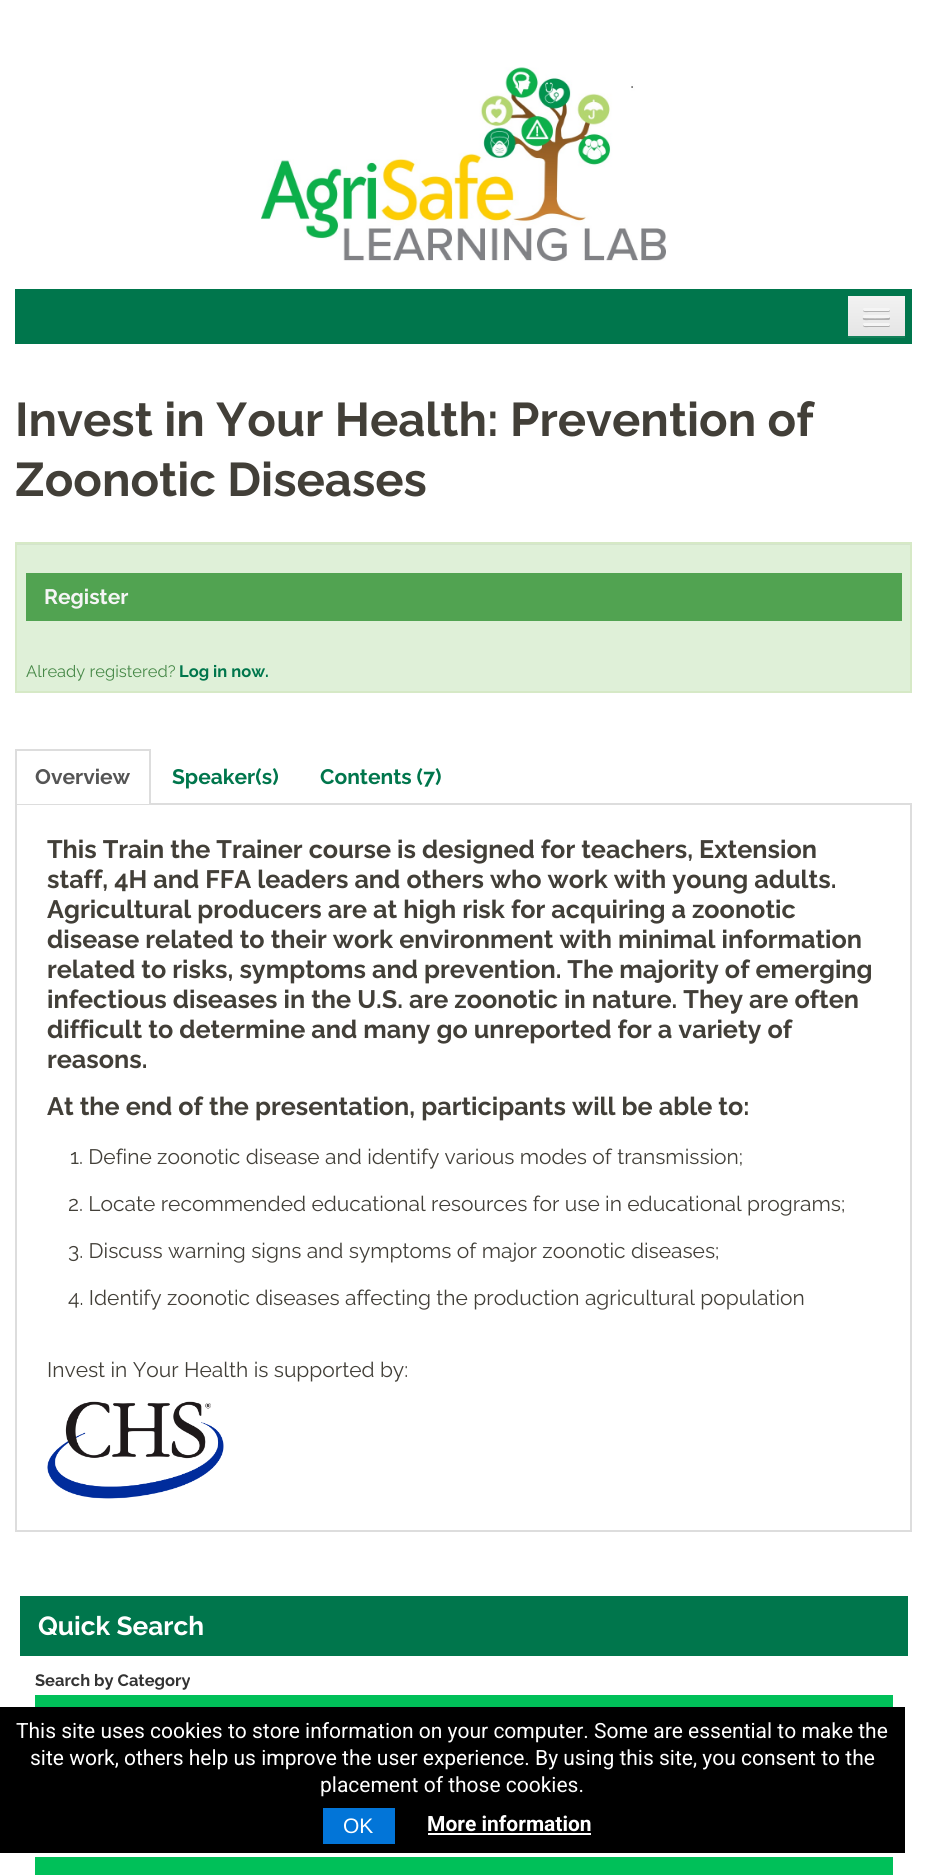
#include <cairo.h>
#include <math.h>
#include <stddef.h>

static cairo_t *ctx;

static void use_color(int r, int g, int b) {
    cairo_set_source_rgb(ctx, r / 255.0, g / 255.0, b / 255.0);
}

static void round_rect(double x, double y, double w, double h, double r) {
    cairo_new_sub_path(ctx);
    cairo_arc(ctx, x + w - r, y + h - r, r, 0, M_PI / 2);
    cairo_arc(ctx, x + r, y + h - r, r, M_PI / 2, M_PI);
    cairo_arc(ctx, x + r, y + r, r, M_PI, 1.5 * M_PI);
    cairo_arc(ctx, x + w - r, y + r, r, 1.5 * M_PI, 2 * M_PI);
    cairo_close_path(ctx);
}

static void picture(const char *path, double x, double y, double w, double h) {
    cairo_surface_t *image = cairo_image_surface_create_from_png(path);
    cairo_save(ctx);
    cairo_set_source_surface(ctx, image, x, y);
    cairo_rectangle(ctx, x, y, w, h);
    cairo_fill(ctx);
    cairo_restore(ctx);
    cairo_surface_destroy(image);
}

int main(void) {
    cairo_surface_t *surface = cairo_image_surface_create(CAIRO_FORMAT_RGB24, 926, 1875);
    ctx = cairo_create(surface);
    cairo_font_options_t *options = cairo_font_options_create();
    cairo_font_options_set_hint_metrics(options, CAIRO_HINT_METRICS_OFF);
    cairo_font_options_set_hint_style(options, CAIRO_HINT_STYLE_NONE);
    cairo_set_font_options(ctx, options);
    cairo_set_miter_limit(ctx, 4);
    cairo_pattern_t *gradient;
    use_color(255, 255, 255);
    cairo_paint(ctx);
    picture("img1.png", 261, 67, 405, 194);
    use_color(0, 118, 76);
    cairo_rectangle(ctx, 15, 289, 897, 55);
    cairo_fill(ctx);
    use_color(19, 128, 89);
    cairo_new_path(ctx);
    cairo_move_to(ctx, 848, 336);
    cairo_line_to(ctx, 848, 338);
    cairo_line_to(ctx, 905, 338);
    cairo_line_to(ctx, 905, 297);
    cairo_line_to(ctx, 904, 297);
    cairo_line_to(ctx, 904, 336);
    cairo_close_path(ctx);
    cairo_fill(ctx);
    gradient = cairo_pattern_create_linear(876, 296, 876, 336);
    cairo_pattern_add_color_stop_rgba(gradient, 0, 0.949, 0.949, 0.949, 1);
    cairo_pattern_add_color_stop_rgba(gradient, 1, 0.898, 0.898, 0.898, 1);
    cairo_set_source(ctx, gradient);
    cairo_pattern_destroy(gradient);
    cairo_rectangle(ctx, 848, 296, 57, 40);
    cairo_fill(ctx);
    use_color(178, 178, 178);
    cairo_new_path(ctx);
    cairo_move_to(ctx, 863, 310);
    cairo_curve_to(ctx, 862.5, 313, 868, 312, 868.5, 312);
    cairo_line_to(ctx, 888.5, 312);
    cairo_curve_to(ctx, 890, 312, 890.5, 310, 889.5, 309.5);
    cairo_line_to(ctx, 888.5, 310.5);
    cairo_curve_to(ctx, 887, 311, 863.5, 310.5, 863, 310);
    cairo_close_path(ctx);
    cairo_fill(ctx);
    use_color(245, 245, 245);
    round_rect(863, 308, 27, 3, 1.5);
    cairo_fill(ctx);
    use_color(176, 176, 176);
    cairo_new_path(ctx);
    cairo_move_to(ctx, 863, 318);
    cairo_curve_to(ctx, 861.5, 321, 868.5, 320, 868.5, 320);
    cairo_line_to(ctx, 889, 320);
    cairo_curve_to(ctx, 890, 319.5, 890.5, 318, 889.5, 317);
    cairo_line_to(ctx, 888, 318);
    cairo_curve_to(ctx, 886, 318.5, 864, 318.5, 863, 318);
    cairo_close_path(ctx);
    cairo_fill(ctx);
    use_color(245, 245, 245);
    round_rect(863, 315, 27, 3, 1.5);
    cairo_fill(ctx);
    use_color(174, 174, 174);
    cairo_new_path(ctx);
    cairo_move_to(ctx, 863, 325);
    cairo_curve_to(ctx, 862.5, 328, 868, 327, 868.5, 327);
    cairo_line_to(ctx, 888.5, 327);
    cairo_curve_to(ctx, 890, 327, 890.5, 325, 889.5, 324.5);
    cairo_line_to(ctx, 888.5, 325.5);
    cairo_curve_to(ctx, 887, 326, 863.5, 325.5, 863, 325);
    cairo_close_path(ctx);
    cairo_fill(ctx);
    use_color(245, 245, 245);
    round_rect(863, 323, 27, 3, 1.5);
    cairo_fill(ctx);
    cairo_select_font_face(ctx, "Raleway Thin", CAIRO_FONT_SLANT_NORMAL, CAIRO_FONT_WEIGHT_NORMAL);
    cairo_set_font_size(ctx, 47.25);
    use_color(66, 63, 56);
    cairo_move_to(ctx, 15, 436);
    cairo_show_text(ctx, "Invest in Your Health: Prevention of");
    cairo_move_to(ctx, 15, 496);
    cairo_show_text(ctx, "Zoonotic Diseases");
    use_color(223, 240, 216);
    cairo_rectangle(ctx, 17, 545, 893, 146);
    cairo_fill(ctx);
    use_color(212, 228, 205);
    cairo_rectangle(ctx, 17, 544, 894, 1);
    cairo_fill(ctx);
    cairo_rectangle(ctx, 16, 543, 895, 149);
    use_color(214, 233, 198);
    cairo_stroke(ctx);
    use_color(81, 163, 81);
    cairo_rectangle(ctx, 26, 573, 876, 48);
    cairo_fill(ctx);
    cairo_set_font_size(ctx, 21);
    use_color(245, 245, 245);
    cairo_move_to(ctx, 44, 604);
    cairo_show_text(ctx, "Register");
    cairo_select_font_face(ctx, "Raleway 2 Thin", CAIRO_FONT_SLANT_NORMAL, CAIRO_FONT_WEIGHT_NORMAL);
    cairo_set_font_size(ctx, 16.5);
    use_color(70, 136, 71);
    cairo_move_to(ctx, 26, 677);
    cairo_show_text(ctx, "Already registered?");
    cairo_select_font_face(ctx, "Raleway Thin", CAIRO_FONT_SLANT_NORMAL, CAIRO_FONT_WEIGHT_NORMAL);
    use_color(0, 118, 76);
    cairo_move_to(ctx, 179, 677);
    cairo_show_text(ctx, "Log in now.");
    cairo_rectangle(ctx, 16, 804, 895, 727);
    use_color(221, 221, 221);
    cairo_stroke(ctx);
    use_color(255, 255, 255);
    cairo_rectangle(ctx, 17, 803, 132, 1);
    cairo_fill(ctx);
    use_color(221, 221, 221);
    cairo_rectangle(ctx, 15, 749, 135, 2);
    cairo_fill(ctx);
    cairo_rectangle(ctx, 149, 749, 2, 55);
    cairo_fill(ctx);
    cairo_rectangle(ctx, 15, 749, 2, 55);
    cairo_fill(ctx);
    cairo_set_font_size(ctx, 21);
    use_color(85, 85, 85);
    cairo_move_to(ctx, 35, 784);
    cairo_show_text(ctx, "Overview");
    use_color(0, 118, 76);
    cairo_move_to(ctx, 172, 784);
    cairo_show_text(ctx, "Speaker(s)");
    cairo_move_to(ctx, 320, 784);
    cairo_show_text(ctx, "Contents (7)");
    cairo_set_font_size(ctx, 25.2);
    use_color(66, 63, 56);
    cairo_move_to(ctx, 47, 858);
    cairo_show_text(ctx, "This Train the Trainer course is designed for teachers, Extension");
    cairo_move_to(ctx, 47, 888);
    cairo_show_text(ctx, "staff, 4H and FFA leaders and others who work with young adults.");
    cairo_move_to(ctx, 47, 918);
    cairo_show_text(ctx, "Agricultural producers are at high risk for acquiring a zoonotic");
    cairo_move_to(ctx, 47, 948);
    cairo_show_text(ctx, "disease related to their work environment with minimal information");
    cairo_move_to(ctx, 47, 978);
    cairo_show_text(ctx, "related to risks, symptoms and prevention. The majority of emerging");
    cairo_move_to(ctx, 47, 1008);
    cairo_show_text(ctx, "infectious diseases in the U.S. are zoonotic in nature. They are often");
    cairo_move_to(ctx, 47, 1038);
    cairo_show_text(ctx, "difficult to determine and many go unreported for a variety of");
    cairo_move_to(ctx, 47, 1068);
    cairo_show_text(ctx, "reasons.");
    cairo_move_to(ctx, 47, 1115);
    cairo_show_text(ctx, "At the end of the presentation, participants will be able to:");
    cairo_select_font_face(ctx, "Raleway 2 Thin", CAIRO_FONT_SLANT_NORMAL, CAIRO_FONT_WEIGHT_NORMAL);
    cairo_set_font_size(ctx, 21);
    cairo_move_to(ctx, 70, 1164);
    cairo_show_text(ctx, "1. Define zoonotic disease and identify various modes of transmission;");
    cairo_move_to(ctx, 68, 1211);
    cairo_show_text(ctx, "2. Locate recommended educational resources for use in educational programs;");
    cairo_move_to(ctx, 68, 1258);
    cairo_show_text(ctx, "3. Discuss warning signs and symptoms of major zoonotic diseases;");
    cairo_move_to(ctx, 68, 1305);
    cairo_show_text(ctx, "4. Identify zoonotic diseases affecting the production agricultural population");
    cairo_move_to(ctx, 47, 1377);
    cairo_show_text(ctx, "Invest in Your Health is supported by:");
    picture("img2.png", 47, 1401, 177, 98);
    use_color(0, 118, 76);
    cairo_rectangle(ctx, 20, 1596, 888, 60);
    cairo_fill(ctx);
    cairo_select_font_face(ctx, "Raleway Thin", CAIRO_FONT_SLANT_NORMAL, CAIRO_FONT_WEIGHT_NORMAL);
    cairo_set_font_size(ctx, 26.25);
    use_color(255, 255, 255);
    cairo_move_to(ctx, 38, 1635);
    cairo_show_text(ctx, "Quick Search");
    cairo_set_font_size(ctx, 16.5);
    use_color(51, 51, 51);
    cairo_move_to(ctx, 35, 1686);
    cairo_show_text(ctx, "Search by Category");
    use_color(0, 192, 89);
    cairo_rectangle(ctx, 35, 1695, 858, 12);
    cairo_fill(ctx);
    cairo_rectangle(ctx, 35, 1857, 858, 18);
    cairo_fill(ctx);
    use_color(0, 0, 0);
    cairo_rectangle(ctx, 0, 1707, 905, 146);
    cairo_fill(ctx);
    cairo_select_font_face(ctx, "Roboto", CAIRO_FONT_SLANT_NORMAL, CAIRO_FONT_WEIGHT_NORMAL);
    cairo_set_font_size(ctx, 21);
    use_color(255, 255, 255);
    cairo_move_to(ctx, 16, 1738);
    cairo_show_text(ctx, "This site uses cookies to store information on your computer. Some are essential to make the");
    cairo_move_to(ctx, 30, 1765);
    cairo_show_text(ctx, "site work, others help us improve the user experience. By using this site, you consent to the");
    cairo_move_to(ctx, 320, 1792);
    cairo_show_text(ctx, "placement of those cookies.");
    use_color(2, 117, 216);
    cairo_rectangle(ctx, 323, 1808, 72, 36);
    cairo_fill(ctx);
    cairo_select_font_face(ctx, "Liberation Sans", CAIRO_FONT_SLANT_NORMAL, CAIRO_FONT_WEIGHT_NORMAL);
    use_color(255, 255, 255);
    cairo_move_to(ctx, 343, 1833);
    cairo_show_text(ctx, "OK");
    cairo_select_font_face(ctx, "Roboto", CAIRO_FONT_SLANT_NORMAL, CAIRO_FONT_WEIGHT_BOLD);
    cairo_move_to(ctx, 427, 1831);
    cairo_show_text(ctx, "More information");
    cairo_rectangle(ctx, 428, 1833, 163, 2);
    cairo_fill(ctx);
    cairo_surface_write_to_png(surface, "result.png");
    cairo_font_options_destroy(options);
    cairo_destroy(ctx);
    cairo_surface_destroy(surface);
    return 0;
}
